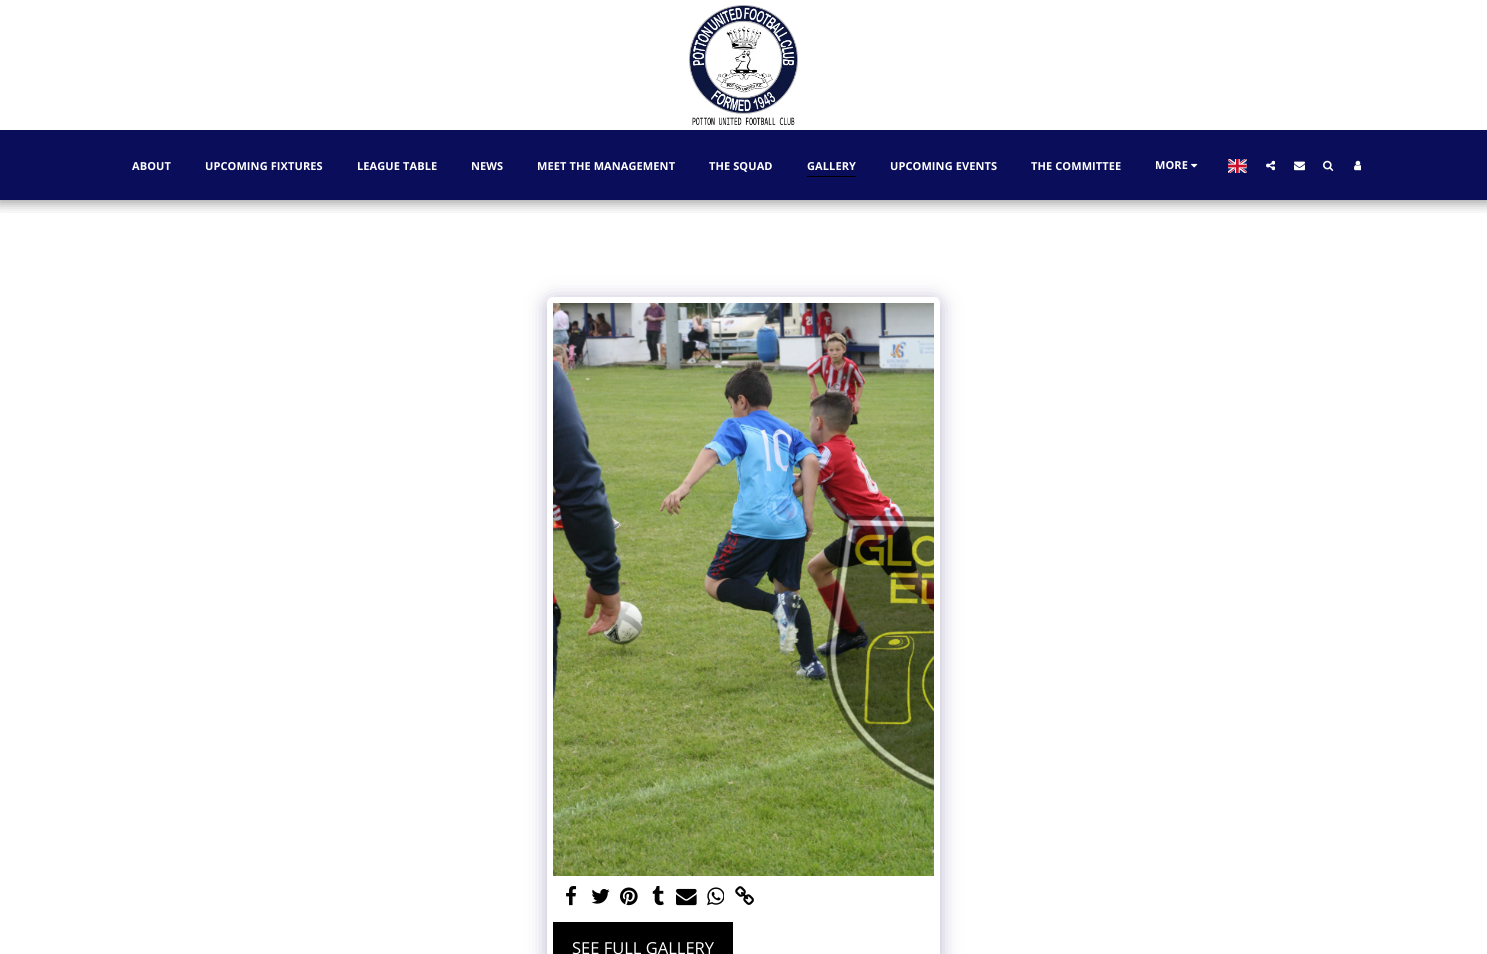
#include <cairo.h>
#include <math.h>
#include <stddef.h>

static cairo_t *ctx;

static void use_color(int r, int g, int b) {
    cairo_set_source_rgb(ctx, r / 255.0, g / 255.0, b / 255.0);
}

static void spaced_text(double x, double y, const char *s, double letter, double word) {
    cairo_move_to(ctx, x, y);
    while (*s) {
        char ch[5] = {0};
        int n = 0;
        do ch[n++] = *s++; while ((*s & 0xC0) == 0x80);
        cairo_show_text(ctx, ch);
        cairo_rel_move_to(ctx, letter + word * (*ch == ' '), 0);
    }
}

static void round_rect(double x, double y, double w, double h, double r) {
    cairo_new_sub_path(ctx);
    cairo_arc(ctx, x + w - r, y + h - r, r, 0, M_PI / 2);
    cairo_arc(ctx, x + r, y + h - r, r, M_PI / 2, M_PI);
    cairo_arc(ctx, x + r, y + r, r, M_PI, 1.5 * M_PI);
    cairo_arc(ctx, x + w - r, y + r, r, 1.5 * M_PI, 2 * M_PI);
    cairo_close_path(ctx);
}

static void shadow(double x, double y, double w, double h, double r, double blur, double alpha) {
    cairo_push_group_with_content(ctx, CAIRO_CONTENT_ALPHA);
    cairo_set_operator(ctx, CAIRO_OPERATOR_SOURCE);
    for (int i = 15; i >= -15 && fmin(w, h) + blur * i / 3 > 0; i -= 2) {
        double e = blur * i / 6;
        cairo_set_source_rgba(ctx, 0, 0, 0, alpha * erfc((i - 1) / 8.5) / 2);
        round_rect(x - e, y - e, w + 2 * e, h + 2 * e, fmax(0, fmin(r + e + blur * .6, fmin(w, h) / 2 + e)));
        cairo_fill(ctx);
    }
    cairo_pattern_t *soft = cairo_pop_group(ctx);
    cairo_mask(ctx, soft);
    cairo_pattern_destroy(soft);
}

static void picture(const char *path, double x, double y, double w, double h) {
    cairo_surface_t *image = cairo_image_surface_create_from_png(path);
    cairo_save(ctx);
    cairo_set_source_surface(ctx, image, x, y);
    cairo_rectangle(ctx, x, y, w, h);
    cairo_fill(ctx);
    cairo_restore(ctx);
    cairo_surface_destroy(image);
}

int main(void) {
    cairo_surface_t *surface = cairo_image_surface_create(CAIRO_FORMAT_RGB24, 1487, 954);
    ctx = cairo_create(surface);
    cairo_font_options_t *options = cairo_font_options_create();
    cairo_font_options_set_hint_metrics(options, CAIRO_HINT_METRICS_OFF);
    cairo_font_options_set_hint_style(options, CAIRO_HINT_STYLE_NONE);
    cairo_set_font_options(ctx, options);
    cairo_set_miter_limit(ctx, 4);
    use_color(255, 255, 255);
    cairo_paint(ctx);
    cairo_save(ctx);
    cairo_rectangle(ctx, 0, 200, 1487, 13);
    cairo_clip(ctx);
    use_color(0, 0, 0);
    shadow(-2, 0, 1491, 204, 0, 6, 0.35);
    cairo_restore(ctx);
    use_color(9, 13, 90);
    cairo_rectangle(ctx, 0, 130, 1487, 70);
    cairo_fill(ctx);
    picture("img1.png", 689, 5, 109, 120);
    cairo_select_font_face(ctx, "Open Sans", CAIRO_FONT_SLANT_NORMAL, CAIRO_FONT_WEIGHT_BOLD);
    cairo_set_font_size(ctx, 11);
    use_color(255, 255, 255);
    spaced_text(132, 170, "ABOUT", 0.1, 0);
    spaced_text(205, 170, "UPCOMING FIXTURES", 0.1, 0);
    spaced_text(357, 170, "LEAGUE TABLE", 0.1, 0);
    spaced_text(471, 170, "NEWS", 0.1, 0);
    spaced_text(537, 170, "MEET THE MANAGEMENT", 0.1, 0);
    spaced_text(709, 170, "THE SQUAD", 0.1, 0);
    spaced_text(807, 170, "GALLERY", 0.1, 0);
    use_color(0, 0, 0);
    cairo_rectangle(ctx, 807, 176, 49, 1);
    cairo_fill(ctx);
    use_color(255, 255, 255);
    spaced_text(890, 170, "UPCOMING EVENTS", 0.1, 0);
    spaced_text(1031, 170, "THE COMMITTEE", 0.1, 0);
    spaced_text(1155, 169, "MORE", 0.1, 0);
    picture("img2.png", 1191, 163, 7, 5);
    picture("img3.png", 1228, 159, 19, 14);
    picture("img4.png", 1266, 160, 9, 11);
    picture("img5.png", 1294, 161, 11, 10);
    picture("img6.png", 1323, 160, 11, 11);
    picture("img7.png", 1354, 160, 7, 11);
    use_color(77, 63, 122);
    shadow(547, 300, 393, 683, 6, 10, 0.4);
    use_color(255, 255, 255);
    round_rect(547, 297, 393, 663, 6);
    cairo_fill(ctx);
    picture("img8.png", 553, 303, 381, 573);
    picture("img9.png", 566, 886, 11, 20);
    picture("img10.png", 591, 889, 19, 15);
    picture("img11.png", 620, 887, 18, 19);
    picture("img12.png", 652, 886, 12, 20);
    picture("img13.png", 676, 888, 21, 18);
    picture("img14.png", 707, 887, 17, 19);
    picture("img15.png", 735, 886, 19, 19);
    use_color(0, 0, 0);
    cairo_rectangle(ctx, 553, 922, 180, 32);
    cairo_fill(ctx);
    cairo_select_font_face(ctx, "Open Sans", CAIRO_FONT_SLANT_NORMAL, CAIRO_FONT_WEIGHT_NORMAL);
    cairo_set_font_size(ctx, 16.5);
    use_color(255, 255, 255);
    cairo_move_to(ctx, 572, 954);
    cairo_show_text(ctx, "SEE FULL GALLERY");
    cairo_surface_write_to_png(surface, "result.png");
    cairo_font_options_destroy(options);
    cairo_destroy(ctx);
    cairo_surface_destroy(surface);
    return 0;
}
